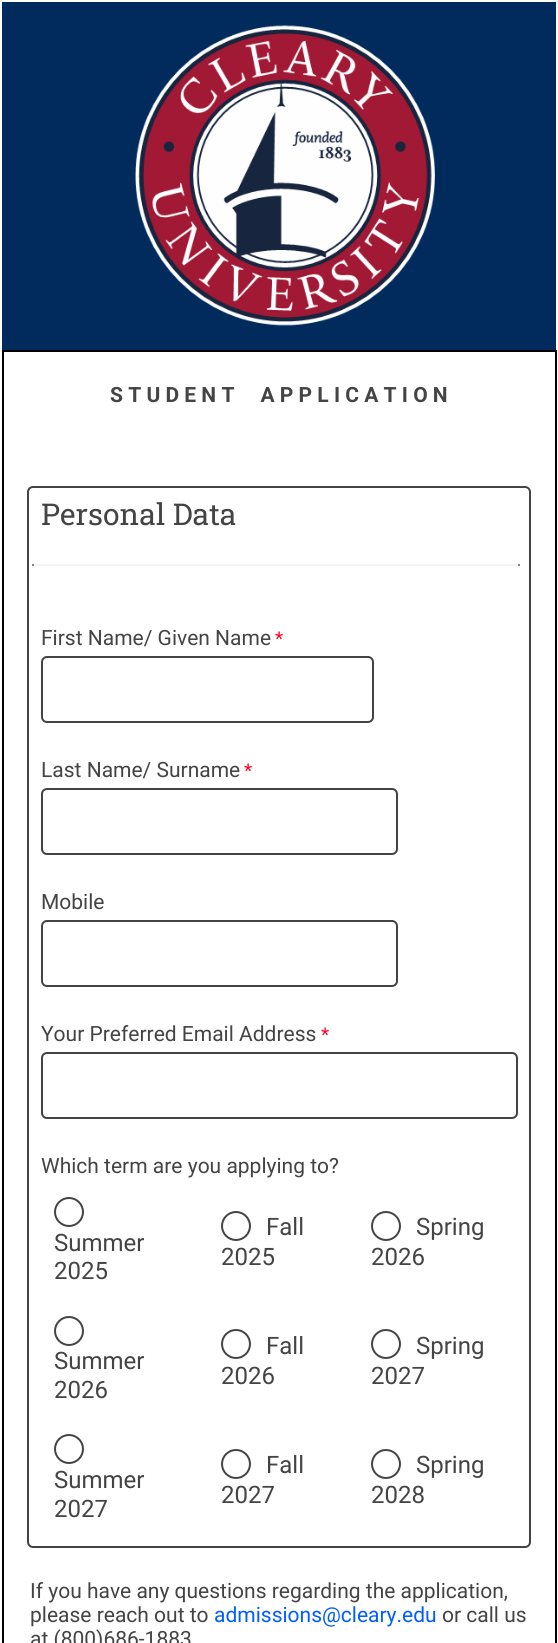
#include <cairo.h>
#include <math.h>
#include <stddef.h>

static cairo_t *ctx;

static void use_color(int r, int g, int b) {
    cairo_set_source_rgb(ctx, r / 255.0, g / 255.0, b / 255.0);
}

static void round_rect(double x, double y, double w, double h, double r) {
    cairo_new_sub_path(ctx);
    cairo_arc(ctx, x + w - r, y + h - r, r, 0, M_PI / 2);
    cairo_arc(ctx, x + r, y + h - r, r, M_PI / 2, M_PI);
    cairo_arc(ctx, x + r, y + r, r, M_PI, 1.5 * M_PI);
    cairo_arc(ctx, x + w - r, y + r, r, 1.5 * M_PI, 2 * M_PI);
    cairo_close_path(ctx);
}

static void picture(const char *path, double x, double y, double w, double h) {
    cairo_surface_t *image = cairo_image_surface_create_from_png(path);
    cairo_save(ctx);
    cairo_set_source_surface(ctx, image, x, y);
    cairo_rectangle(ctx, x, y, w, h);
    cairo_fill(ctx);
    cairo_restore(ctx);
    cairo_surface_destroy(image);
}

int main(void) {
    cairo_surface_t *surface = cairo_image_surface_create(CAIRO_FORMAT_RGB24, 558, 1643);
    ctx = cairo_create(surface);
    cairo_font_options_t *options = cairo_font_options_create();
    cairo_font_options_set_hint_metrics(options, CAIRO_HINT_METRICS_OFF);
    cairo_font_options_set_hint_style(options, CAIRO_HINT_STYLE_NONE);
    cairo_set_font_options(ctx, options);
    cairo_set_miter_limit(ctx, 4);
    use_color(0, 43, 92);
    cairo_paint(ctx);
    cairo_rectangle(ctx, 1, 1, 556, 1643);
    use_color(255, 255, 255);
    cairo_stroke(ctx);
    picture("img1.png", 135, 25, 300, 301);
    cairo_rectangle(ctx, 3, 351, 553, 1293);
    cairo_fill_preserve(ctx);
    use_color(0, 0, 0);
    cairo_stroke(ctx);
    cairo_select_font_face(ctx, "Roboto", CAIRO_FONT_SLANT_NORMAL, CAIRO_FONT_WEIGHT_BOLD);
    cairo_set_font_size(ctx, 21);
    use_color(68, 68, 68);
    cairo_move_to(ctx, 110, 402);
    cairo_show_text(ctx, "S T U D E N T     A P P L I C A T I O N");
    round_rect(28, 487, 502, 1060, 5);
    cairo_stroke(ctx);
    cairo_select_font_face(ctx, "Roboto Slab", CAIRO_FONT_SLANT_NORMAL, CAIRO_FONT_WEIGHT_NORMAL);
    cairo_set_font_size(ctx, 30);
    cairo_move_to(ctx, 41, 525);
    cairo_show_text(ctx, "Personal Data");
    use_color(244, 244, 244);
    cairo_rectangle(ctx, 32, 564, 487, 2);
    cairo_fill(ctx);
    use_color(128, 128, 128);
    cairo_rectangle(ctx, 518, 564, 2, 2);
    cairo_fill(ctx);
    cairo_rectangle(ctx, 32, 564, 2, 2);
    cairo_fill(ctx);
    cairo_select_font_face(ctx, "Roboto", CAIRO_FONT_SLANT_NORMAL, CAIRO_FONT_WEIGHT_NORMAL);
    cairo_set_font_size(ctx, 21);
    use_color(68, 68, 68);
    cairo_move_to(ctx, 41, 645);
    cairo_show_text(ctx, "First Name/ Given Name");
    cairo_set_font_size(ctx, 19);
    use_color(255, 1, 38);
    cairo_move_to(ctx, 275, 645);
    cairo_show_text(ctx, "*");
    round_rect(42, 657, 331, 65, 5);
    use_color(68, 68, 68);
    cairo_stroke(ctx);
    cairo_set_font_size(ctx, 21);
    cairo_move_to(ctx, 41, 777);
    cairo_show_text(ctx, "Last Name/ Surname");
    cairo_set_font_size(ctx, 19);
    use_color(255, 1, 38);
    cairo_move_to(ctx, 244, 777);
    cairo_show_text(ctx, "*");
    round_rect(42, 789, 355, 65, 5);
    use_color(68, 68, 68);
    cairo_stroke(ctx);
    cairo_set_font_size(ctx, 21);
    cairo_move_to(ctx, 41, 909);
    cairo_show_text(ctx, "Mobile");
    round_rect(42, 921, 355, 65, 5);
    cairo_stroke(ctx);
    cairo_move_to(ctx, 41, 1041);
    cairo_show_text(ctx, "Your Preferred Email Address");
    cairo_set_font_size(ctx, 19);
    use_color(255, 1, 38);
    cairo_move_to(ctx, 321, 1041);
    cairo_show_text(ctx, "*");
    round_rect(42, 1053, 475, 65, 5);
    use_color(68, 68, 68);
    cairo_stroke(ctx);
    cairo_set_font_size(ctx, 21);
    cairo_move_to(ctx, 41, 1173);
    cairo_show_text(ctx, "Which term are you applying to?");
    cairo_new_path(ctx);
    cairo_arc(ctx, 69, 1212, 14, 0, 2 * M_PI);
    cairo_stroke(ctx);
    cairo_set_font_size(ctx, 24);
    cairo_move_to(ctx, 54, 1251);
    cairo_show_text(ctx, "Summer");
    cairo_move_to(ctx, 54, 1279);
    cairo_show_text(ctx, "2025");
    cairo_new_path(ctx);
    cairo_arc(ctx, 236, 1226, 14, 0, 2 * M_PI);
    cairo_stroke(ctx);
    cairo_move_to(ctx, 266, 1235);
    cairo_show_text(ctx, "Fall");
    cairo_move_to(ctx, 221, 1265);
    cairo_show_text(ctx, "2025");
    cairo_new_path(ctx);
    cairo_arc(ctx, 386, 1226, 14, 0, 2 * M_PI);
    cairo_stroke(ctx);
    cairo_move_to(ctx, 416, 1235);
    cairo_show_text(ctx, "Spring");
    cairo_move_to(ctx, 371, 1265);
    cairo_show_text(ctx, "2026");
    cairo_new_path(ctx);
    cairo_arc(ctx, 69, 1331, 14, 0, 2 * M_PI);
    cairo_stroke(ctx);
    cairo_move_to(ctx, 54, 1369);
    cairo_show_text(ctx, "Summer");
    cairo_move_to(ctx, 54, 1398);
    cairo_show_text(ctx, "2026");
    cairo_new_path(ctx);
    cairo_arc(ctx, 236, 1344, 14, 0, 2 * M_PI);
    cairo_stroke(ctx);
    cairo_move_to(ctx, 266, 1354);
    cairo_show_text(ctx, "Fall");
    cairo_move_to(ctx, 221, 1384);
    cairo_show_text(ctx, "2026");
    cairo_new_path(ctx);
    cairo_arc(ctx, 386, 1344, 14, 0, 2 * M_PI);
    cairo_stroke(ctx);
    cairo_move_to(ctx, 416, 1354);
    cairo_show_text(ctx, "Spring");
    cairo_move_to(ctx, 371, 1384);
    cairo_show_text(ctx, "2027");
    cairo_new_path(ctx);
    cairo_arc(ctx, 69, 1449, 14, 0, 2 * M_PI);
    cairo_stroke(ctx);
    cairo_move_to(ctx, 54, 1488);
    cairo_show_text(ctx, "Summer");
    cairo_move_to(ctx, 54, 1517);
    cairo_show_text(ctx, "2027");
    cairo_new_path(ctx);
    cairo_arc(ctx, 236, 1464, 14, 0, 2 * M_PI);
    cairo_stroke(ctx);
    cairo_move_to(ctx, 266, 1473);
    cairo_show_text(ctx, "Fall");
    cairo_move_to(ctx, 221, 1503);
    cairo_show_text(ctx, "2027");
    cairo_new_path(ctx);
    cairo_arc(ctx, 386, 1464, 14, 0, 2 * M_PI);
    cairo_stroke(ctx);
    cairo_move_to(ctx, 416, 1473);
    cairo_show_text(ctx, "Spring");
    cairo_move_to(ctx, 371, 1503);
    cairo_show_text(ctx, "2028");
    cairo_set_font_size(ctx, 21);
    cairo_move_to(ctx, 30, 1598);
    cairo_show_text(ctx, "If you have any questions regarding the application,");
    cairo_move_to(ctx, 30, 1622);
    cairo_show_text(ctx, "please reach out to");
    use_color(0, 94, 255);
    cairo_move_to(ctx, 214, 1622);
    cairo_show_text(ctx, "admissions@cleary.edu");
    use_color(68, 68, 68);
    cairo_move_to(ctx, 442, 1622);
    cairo_show_text(ctx, "or call us");
    cairo_move_to(ctx, 30, 1646);
    cairo_show_text(ctx, "at (800)686-1883");
    cairo_surface_write_to_png(surface, "result.png");
    cairo_font_options_destroy(options);
    cairo_destroy(ctx);
    cairo_surface_destroy(surface);
    return 0;
}
